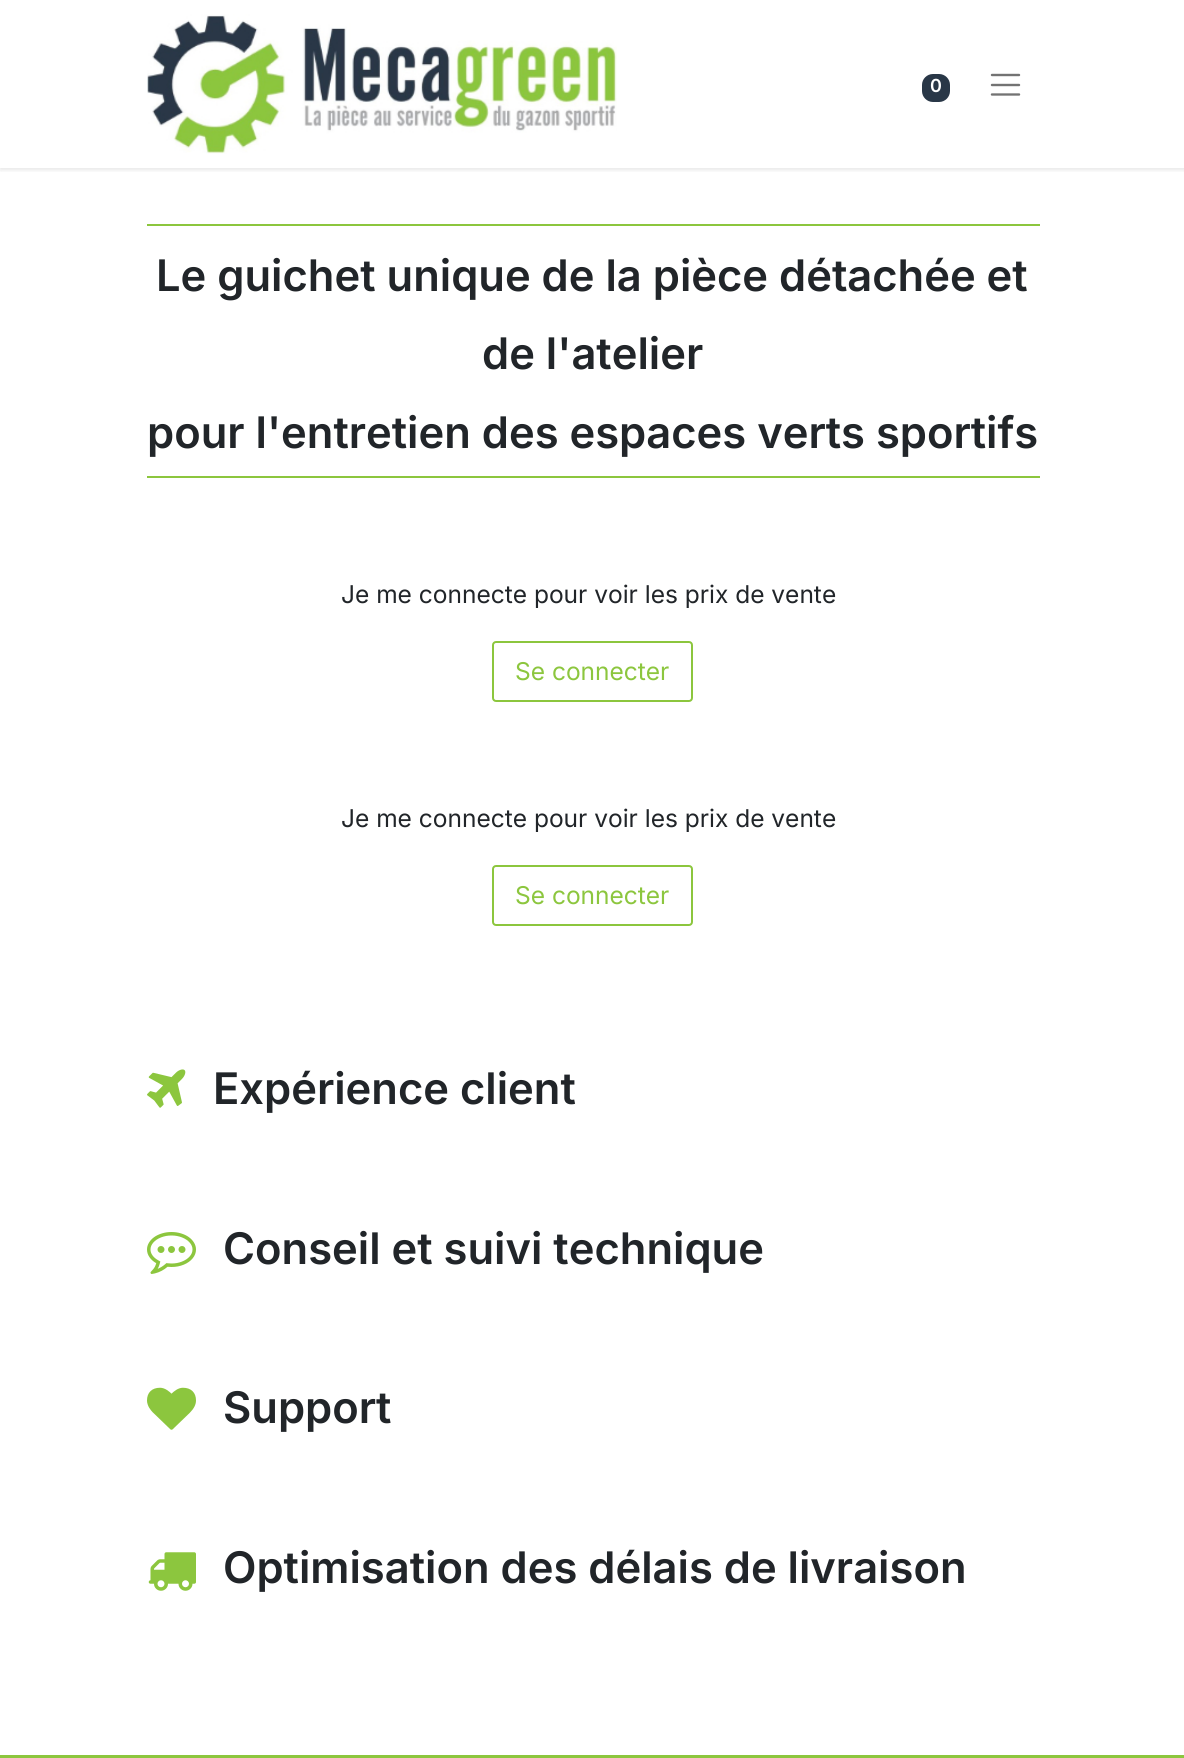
#include <cairo.h>
#include <math.h>
#include <stddef.h>

static cairo_t *ctx;

static void use_color(int r, int g, int b) {
    cairo_set_source_rgb(ctx, r / 255.0, g / 255.0, b / 255.0);
}

static void round_rect(double x, double y, double w, double h, double r) {
    cairo_new_sub_path(ctx);
    cairo_arc(ctx, x + w - r, y + h - r, r, 0, M_PI / 2);
    cairo_arc(ctx, x + r, y + h - r, r, M_PI / 2, M_PI);
    cairo_arc(ctx, x + r, y + r, r, M_PI, 1.5 * M_PI);
    cairo_arc(ctx, x + w - r, y + r, r, 1.5 * M_PI, 2 * M_PI);
    cairo_close_path(ctx);
}

static void shadow(double x, double y, double w, double h, double r, double blur, double alpha) {
    cairo_push_group_with_content(ctx, CAIRO_CONTENT_ALPHA);
    cairo_set_operator(ctx, CAIRO_OPERATOR_SOURCE);
    for (int i = 15; i >= -15 && fmin(w, h) + blur * i / 3 > 0; i -= 2) {
        double e = blur * i / 6;
        cairo_set_source_rgba(ctx, 0, 0, 0, alpha * erfc((i - 1) / 8.5) / 2);
        round_rect(x - e, y - e, w + 2 * e, h + 2 * e, fmax(0, fmin(r + e + blur * .6, fmin(w, h) / 2 + e)));
        cairo_fill(ctx);
    }
    cairo_pattern_t *soft = cairo_pop_group(ctx);
    cairo_mask(ctx, soft);
    cairo_pattern_destroy(soft);
}

static void picture(const char *path, double x, double y, double w, double h) {
    cairo_surface_t *image = cairo_image_surface_create_from_png(path);
    cairo_save(ctx);
    cairo_set_source_surface(ctx, image, x, y);
    cairo_rectangle(ctx, x, y, w, h);
    cairo_fill(ctx);
    cairo_restore(ctx);
    cairo_surface_destroy(image);
}

int main(void) {
    cairo_surface_t *surface = cairo_image_surface_create(CAIRO_FORMAT_RGB24, 1184, 1758);
    ctx = cairo_create(surface);
    cairo_font_options_t *options = cairo_font_options_create();
    cairo_font_options_set_hint_metrics(options, CAIRO_HINT_METRICS_OFF);
    cairo_font_options_set_hint_style(options, CAIRO_HINT_STYLE_NONE);
    cairo_set_font_options(ctx, options);
    cairo_set_miter_limit(ctx, 4);
    use_color(255, 255, 255);
    cairo_paint(ctx);
    cairo_save(ctx);
    cairo_rectangle(ctx, 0, 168, 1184, 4);
    cairo_clip(ctx);
    use_color(0, 0, 0);
    shadow(0, 2, 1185, 168, 0, 2.5, 0.1);
    cairo_restore(ctx);
    picture("img1.png", 147, 14, 470, 140);
    use_color(41, 55, 71);
    round_rect(922, 74, 28, 28, 11);
    cairo_fill(ctx);
    cairo_select_font_face(ctx, "Inter SemiBold", CAIRO_FONT_SLANT_NORMAL, CAIRO_FONT_WEIGHT_NORMAL);
    cairo_set_font_size(ctx, 18);
    use_color(255, 255, 255);
    cairo_move_to(ctx, 930, 92);
    cairo_show_text(ctx, "0");
    cairo_new_path(ctx);
    cairo_move_to(ctx, 992, 75);
    cairo_line_to(ctx, 1019, 75);
    cairo_move_to(ctx, 992, 85);
    cairo_line_to(ctx, 1019, 85);
    cairo_move_to(ctx, 992, 94.5);
    cairo_line_to(ctx, 1019, 94.5);
    use_color(115, 115, 115);
    cairo_set_line_width(ctx, 2.4);
    cairo_set_line_cap(ctx, CAIRO_LINE_CAP_ROUND);
    cairo_stroke(ctx);
    use_color(140, 198, 62);
    cairo_rectangle(ctx, 147, 224, 893, 2);
    cairo_fill(ctx);
    cairo_set_font_size(ctx, 43.5);
    use_color(33, 37, 41);
    cairo_move_to(ctx, 156, 291);
    cairo_show_text(ctx, "Le guichet unique de la pièce détachée et");
    cairo_move_to(ctx, 482, 369);
    cairo_show_text(ctx, "de l'atelier");
    cairo_move_to(ctx, 147, 448);
    cairo_show_text(ctx, "pour l'entretien des espaces verts sportifs");
    use_color(140, 198, 62);
    cairo_rectangle(ctx, 147, 476, 893, 2);
    cairo_fill(ctx);
    cairo_select_font_face(ctx, "Inter", CAIRO_FONT_SLANT_NORMAL, CAIRO_FONT_WEIGHT_NORMAL);
    cairo_set_font_size(ctx, 24.5);
    use_color(33, 37, 41);
    cairo_move_to(ctx, 341, 603);
    cairo_show_text(ctx, "Je me connecte pour voir les prix de vente");
    round_rect(493, 642, 199, 59, 3);
    use_color(140, 198, 62);
    cairo_set_line_width(ctx, 2);
    cairo_set_line_cap(ctx, CAIRO_LINE_CAP_BUTT);
    cairo_stroke(ctx);
    cairo_move_to(ctx, 515, 680);
    cairo_show_text(ctx, "Se connecter");
    use_color(33, 37, 41);
    cairo_move_to(ctx, 341, 827);
    cairo_show_text(ctx, "Je me connecte pour voir les prix de vente");
    round_rect(493, 866, 199, 59, 3);
    use_color(140, 198, 62);
    cairo_stroke(ctx);
    cairo_move_to(ctx, 515, 904);
    cairo_show_text(ctx, "Se connecter");
    picture("img2.png", 147, 1069, 39, 39);
    cairo_select_font_face(ctx, "Inter SemiBold", CAIRO_FONT_SLANT_NORMAL, CAIRO_FONT_WEIGHT_NORMAL);
    cairo_set_font_size(ctx, 43.5);
    use_color(33, 37, 41);
    cairo_move_to(ctx, 213, 1104);
    cairo_show_text(ctx, "Expérience client");
    picture("img3.png", 147, 1232, 49, 42);
    cairo_move_to(ctx, 223, 1264);
    cairo_show_text(ctx, "Conseil et suivi technique");
    picture("img4.png", 147, 1387, 49, 43);
    cairo_move_to(ctx, 223, 1423);
    cairo_show_text(ctx, "Support");
    picture("img5.png", 148, 1552, 48, 39);
    cairo_move_to(ctx, 223, 1583);
    cairo_show_text(ctx, "Optimisation des délais de livraison");
    use_color(140, 198, 62);
    cairo_rectangle(ctx, 0, 1755, 1184, 3);
    cairo_fill(ctx);
    cairo_surface_write_to_png(surface, "result.png");
    cairo_font_options_destroy(options);
    cairo_destroy(ctx);
    cairo_surface_destroy(surface);
    return 0;
}
